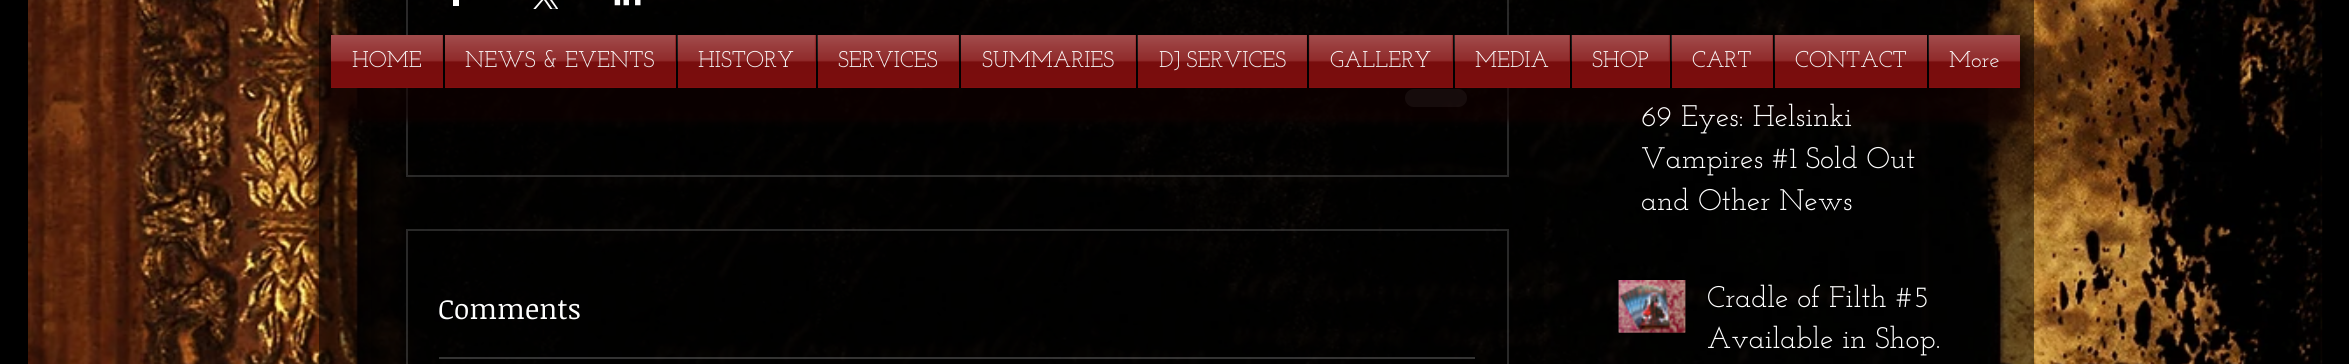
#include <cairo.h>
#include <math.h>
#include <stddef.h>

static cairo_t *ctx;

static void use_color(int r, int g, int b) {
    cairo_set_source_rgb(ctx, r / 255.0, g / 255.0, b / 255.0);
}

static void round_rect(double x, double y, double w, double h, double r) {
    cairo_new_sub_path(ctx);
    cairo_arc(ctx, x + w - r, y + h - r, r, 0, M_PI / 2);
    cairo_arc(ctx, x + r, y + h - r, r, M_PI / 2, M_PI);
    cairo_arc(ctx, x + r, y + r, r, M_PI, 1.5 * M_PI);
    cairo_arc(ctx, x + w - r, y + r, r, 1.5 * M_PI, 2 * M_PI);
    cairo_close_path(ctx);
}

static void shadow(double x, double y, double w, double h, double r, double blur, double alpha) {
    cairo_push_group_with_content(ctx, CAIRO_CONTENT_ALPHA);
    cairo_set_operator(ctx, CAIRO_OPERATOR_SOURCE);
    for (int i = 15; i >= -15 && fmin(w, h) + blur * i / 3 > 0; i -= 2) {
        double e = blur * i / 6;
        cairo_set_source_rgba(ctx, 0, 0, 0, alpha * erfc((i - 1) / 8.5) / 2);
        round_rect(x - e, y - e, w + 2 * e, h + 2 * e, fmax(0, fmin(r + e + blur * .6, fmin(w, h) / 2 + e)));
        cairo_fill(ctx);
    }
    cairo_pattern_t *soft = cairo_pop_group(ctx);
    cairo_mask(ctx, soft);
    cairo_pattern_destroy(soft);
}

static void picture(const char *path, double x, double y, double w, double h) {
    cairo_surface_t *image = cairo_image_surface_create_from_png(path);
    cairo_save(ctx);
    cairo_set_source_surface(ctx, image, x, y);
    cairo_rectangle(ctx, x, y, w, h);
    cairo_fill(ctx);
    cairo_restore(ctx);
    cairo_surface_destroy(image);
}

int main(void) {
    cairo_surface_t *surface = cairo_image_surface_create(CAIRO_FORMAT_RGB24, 2349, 364);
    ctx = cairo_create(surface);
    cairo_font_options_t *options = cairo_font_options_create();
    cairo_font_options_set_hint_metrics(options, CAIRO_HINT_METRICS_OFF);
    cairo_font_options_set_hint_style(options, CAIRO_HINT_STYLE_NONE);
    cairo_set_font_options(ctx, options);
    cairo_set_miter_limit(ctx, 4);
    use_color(0, 0, 0);
    cairo_paint(ctx);
    picture("img1.png", 28, 0, 2295, 364);
    cairo_set_source_rgba(ctx, 0, 0, 0, 0.49);
    cairo_rectangle(ctx, 319, 0, 1715, 364);
    cairo_fill(ctx);
    cairo_set_source_rgba(ctx, 0, 0, 0, 0.27);
    cairo_rectangle(ctx, 371, 0, 1173, 364);
    cairo_fill(ctx);
    cairo_rectangle(ctx, 406, 0, 1103, 177);
    cairo_fill(ctx);
    cairo_rectangle(ctx, 407, -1, 1101, 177);
    cairo_set_source_rgba(ctx, 0.529, 0.529, 0.522, 0.3);
    cairo_stroke(ctx);
    cairo_set_source_rgba(ctx, 1, 1, 1, 0.12);
    round_rect(1405, 89, 62, 18, 9);
    cairo_fill(ctx);
    use_color(17, 0, 0);
    shadow(326, 58, 1699, 63, 0, 3.5, 0.6);
    use_color(129, 14, 14);
    cairo_rectangle(ctx, 331, 35, 112, 53);
    cairo_fill(ctx);
    cairo_select_font_face(ctx, "Josefin Slab", CAIRO_FONT_SLANT_NORMAL, CAIRO_FONT_WEIGHT_NORMAL);
    cairo_set_font_size(ctx, 22.75);
    use_color(255, 255, 255);
    cairo_move_to(ctx, 352, 67);
    cairo_show_text(ctx, "HOME");
    picture("img2.png", 331, 35, 112, 52);
    use_color(129, 14, 14);
    cairo_rectangle(ctx, 445, 35, 231, 53);
    cairo_fill(ctx);
    use_color(0, 0, 0);
    cairo_rectangle(ctx, 443, 54, 2, 34);
    cairo_fill(ctx);
    use_color(255, 255, 255);
    cairo_move_to(ctx, 465, 67);
    cairo_show_text(ctx, "NEWS & EVENTS");
    picture("img3.png", 445, 35, 231, 52);
    use_color(129, 14, 14);
    cairo_rectangle(ctx, 678, 35, 138, 53);
    cairo_fill(ctx);
    use_color(0, 0, 0);
    cairo_rectangle(ctx, 676, 35, 2, 53);
    cairo_fill(ctx);
    use_color(255, 255, 255);
    cairo_move_to(ctx, 698, 67);
    cairo_show_text(ctx, "HISTORY");
    picture("img4.png", 676, 35, 140, 52);
    use_color(129, 14, 14);
    cairo_rectangle(ctx, 818, 35, 141, 53);
    cairo_fill(ctx);
    use_color(0, 0, 0);
    cairo_rectangle(ctx, 816, 35, 2, 53);
    cairo_fill(ctx);
    use_color(255, 255, 255);
    cairo_move_to(ctx, 838, 67);
    cairo_show_text(ctx, "SERVICES");
    picture("img5.png", 816, 35, 143, 52);
    use_color(129, 14, 14);
    cairo_rectangle(ctx, 961, 35, 175, 53);
    cairo_fill(ctx);
    use_color(0, 0, 0);
    cairo_rectangle(ctx, 959, 35, 2, 53);
    cairo_fill(ctx);
    use_color(255, 255, 255);
    cairo_move_to(ctx, 982, 67);
    cairo_show_text(ctx, "SUMMARIES");
    picture("img6.png", 960, 35, 176, 52);
    use_color(129, 14, 14);
    cairo_rectangle(ctx, 1138, 35, 169, 53);
    cairo_fill(ctx);
    use_color(0, 0, 0);
    cairo_rectangle(ctx, 1136, 35, 2, 53);
    cairo_fill(ctx);
    use_color(255, 255, 255);
    cairo_move_to(ctx, 1159, 67);
    cairo_show_text(ctx, "DJ SERVICES");
    picture("img7.png", 1137, 35, 170, 52);
    use_color(129, 14, 14);
    cairo_rectangle(ctx, 1309, 35, 144, 53);
    cairo_fill(ctx);
    use_color(0, 0, 0);
    cairo_rectangle(ctx, 1307, 35, 2, 53);
    cairo_fill(ctx);
    use_color(255, 255, 255);
    cairo_move_to(ctx, 1330, 67);
    cairo_show_text(ctx, "GALLERY");
    picture("img8.png", 1308, 35, 145, 52);
    use_color(129, 14, 14);
    cairo_rectangle(ctx, 1455, 35, 115, 53);
    cairo_fill(ctx);
    use_color(0, 0, 0);
    cairo_rectangle(ctx, 1453, 35, 2, 53);
    cairo_fill(ctx);
    use_color(255, 255, 255);
    cairo_move_to(ctx, 1475, 67);
    cairo_show_text(ctx, "MEDIA");
    picture("img9.png", 1453, 35, 117, 52);
    use_color(129, 14, 14);
    cairo_rectangle(ctx, 1572, 35, 98, 53);
    cairo_fill(ctx);
    use_color(0, 0, 0);
    cairo_rectangle(ctx, 1570, 49, 2, 39);
    cairo_fill(ctx);
    use_color(255, 255, 255);
    cairo_move_to(ctx, 1592, 67);
    cairo_show_text(ctx, "SHOP");
    picture("img10.png", 1571, 35, 99, 52);
    use_color(129, 14, 14);
    cairo_rectangle(ctx, 1672, 35, 101, 53);
    cairo_fill(ctx);
    use_color(0, 0, 0);
    cairo_rectangle(ctx, 1670, 35, 2, 53);
    cairo_fill(ctx);
    use_color(255, 255, 255);
    cairo_move_to(ctx, 1692, 67);
    cairo_show_text(ctx, "CART");
    picture("img11.png", 1670, 35, 103, 52);
    use_color(129, 14, 14);
    cairo_rectangle(ctx, 1775, 35, 152, 53);
    cairo_fill(ctx);
    use_color(0, 0, 0);
    cairo_rectangle(ctx, 1773, 35, 2, 53);
    cairo_fill(ctx);
    use_color(255, 255, 255);
    cairo_move_to(ctx, 1795, 67);
    cairo_show_text(ctx, "CONTACT");
    picture("img12.png", 1774, 35, 153, 52);
    use_color(129, 14, 14);
    cairo_rectangle(ctx, 1929, 35, 91, 53);
    cairo_fill(ctx);
    use_color(0, 0, 0);
    cairo_rectangle(ctx, 1927, 55, 2, 33);
    cairo_fill(ctx);
    use_color(255, 255, 255);
    cairo_move_to(ctx, 1949, 67);
    cairo_show_text(ctx, "More");
    picture("img13.png", 1928, 35, 92, 52);
    cairo_rectangle(ctx, 453, 0, 6, 6);
    cairo_fill(ctx);
    picture("img14.png", 533, 0, 25, 9);
    picture("img15.png", 614, 0, 27, 6);
    cairo_set_source_rgba(ctx, 0, 0, 0, 0.27);
    cairo_rectangle(ctx, 465, 229, 1044, 135);
    cairo_fill(ctx);
    cairo_rectangle(ctx, 407, 230, 1101, 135);
    cairo_set_source_rgba(ctx, 0.529, 0.529, 0.522, 0.3);
    cairo_stroke(ctx);
    cairo_select_font_face(ctx, "Noticia Text", CAIRO_FONT_SLANT_NORMAL, CAIRO_FONT_WEIGHT_NORMAL);
    cairo_set_font_size(ctx, 28);
    use_color(255, 255, 255);
    cairo_move_to(ctx, 438, 319);
    cairo_show_text(ctx, "Comments");
    cairo_set_source_rgba(ctx, 1, 1, 1, 0.2);
    cairo_rectangle(ctx, 439, 357, 1036, 2);
    cairo_fill(ctx);
    cairo_select_font_face(ctx, "Josefin Slab", CAIRO_FONT_SLANT_NORMAL, CAIRO_FONT_WEIGHT_NORMAL);
    cairo_set_font_size(ctx, 29.75);
    use_color(255, 255, 255);
    cairo_move_to(ctx, 1641, 126);
    cairo_show_text(ctx, "69 Eyes: Helsinki");
    cairo_move_to(ctx, 1641, 168);
    cairo_show_text(ctx, "Vampires #1 Sold Out");
    cairo_save(ctx);
    cairo_rectangle(ctx, 1642, 98, 318, 121);
    cairo_clip(ctx);
    cairo_move_to(ctx, 1641, 210);
    cairo_show_text(ctx, "and Other News");
    cairo_restore(ctx);
    picture("img16.png", 1618, 280, 68, 53);
    picture("img17.png", 1618, 280, 68, 53);
    cairo_move_to(ctx, 1707, 307);
    cairo_show_text(ctx, "Cradle of Filth #5");
    cairo_move_to(ctx, 1707, 348);
    cairo_show_text(ctx, "Available in Shop.");
    cairo_surface_write_to_png(surface, "result.png");
    cairo_font_options_destroy(options);
    cairo_destroy(ctx);
    cairo_surface_destroy(surface);
    return 0;
}
